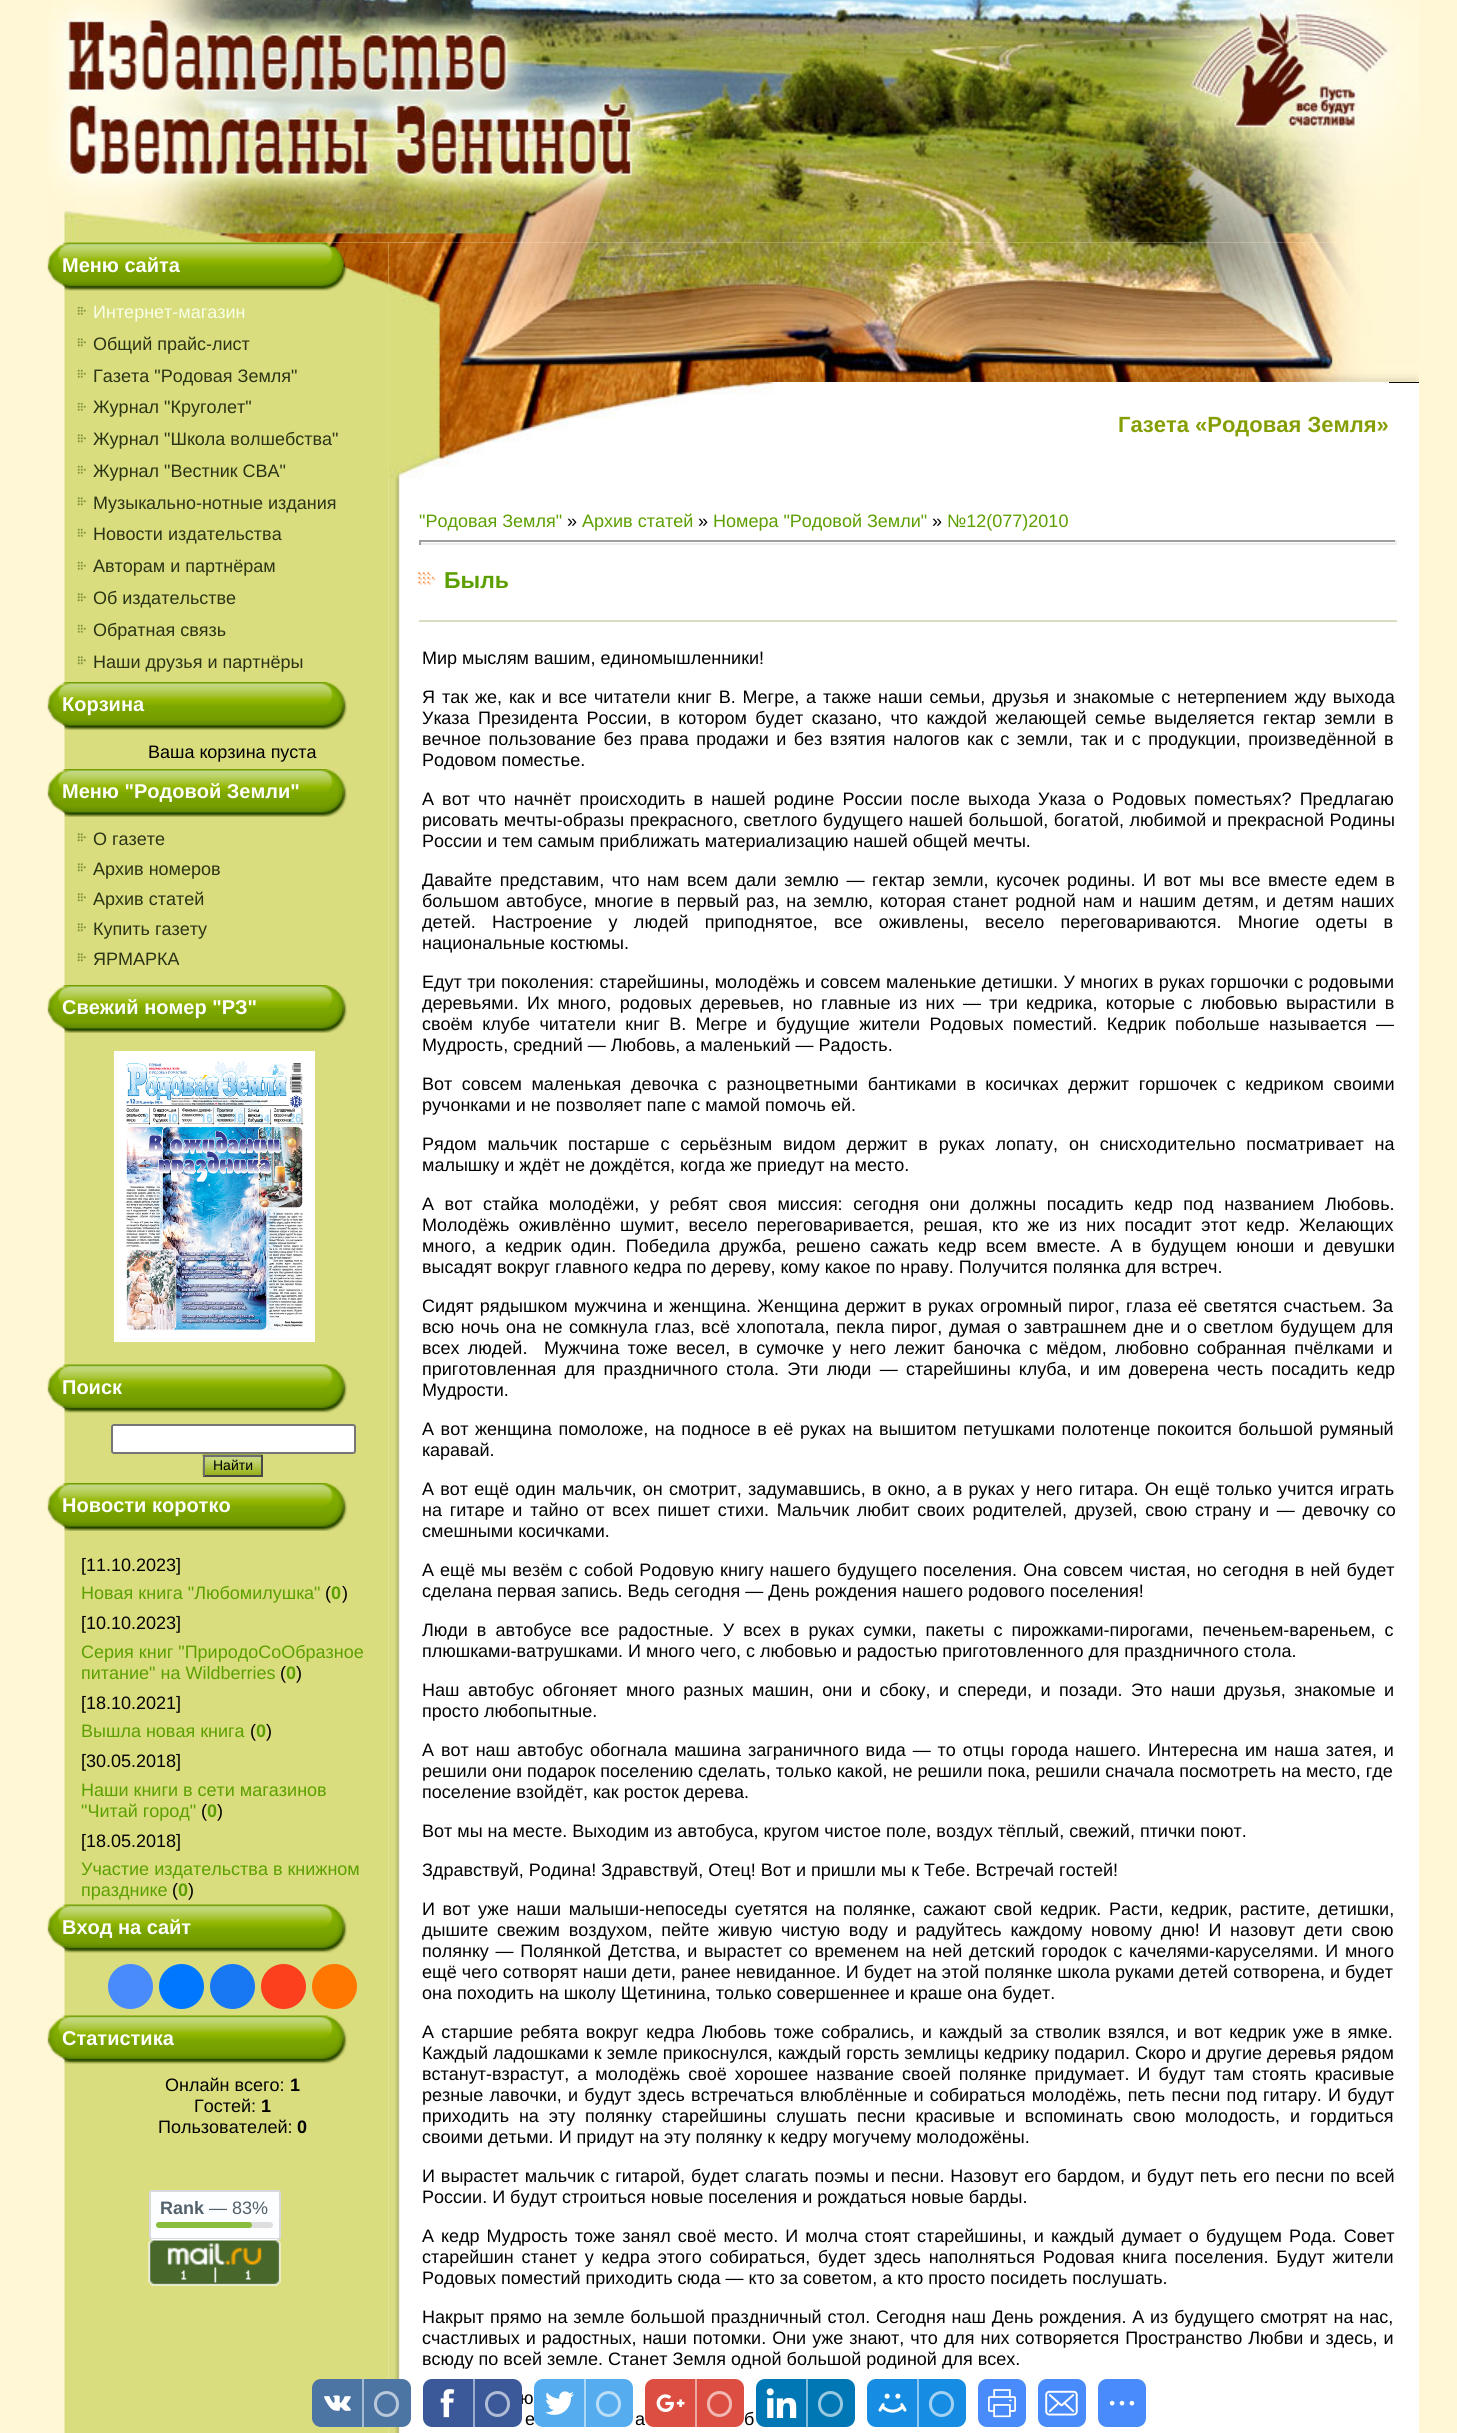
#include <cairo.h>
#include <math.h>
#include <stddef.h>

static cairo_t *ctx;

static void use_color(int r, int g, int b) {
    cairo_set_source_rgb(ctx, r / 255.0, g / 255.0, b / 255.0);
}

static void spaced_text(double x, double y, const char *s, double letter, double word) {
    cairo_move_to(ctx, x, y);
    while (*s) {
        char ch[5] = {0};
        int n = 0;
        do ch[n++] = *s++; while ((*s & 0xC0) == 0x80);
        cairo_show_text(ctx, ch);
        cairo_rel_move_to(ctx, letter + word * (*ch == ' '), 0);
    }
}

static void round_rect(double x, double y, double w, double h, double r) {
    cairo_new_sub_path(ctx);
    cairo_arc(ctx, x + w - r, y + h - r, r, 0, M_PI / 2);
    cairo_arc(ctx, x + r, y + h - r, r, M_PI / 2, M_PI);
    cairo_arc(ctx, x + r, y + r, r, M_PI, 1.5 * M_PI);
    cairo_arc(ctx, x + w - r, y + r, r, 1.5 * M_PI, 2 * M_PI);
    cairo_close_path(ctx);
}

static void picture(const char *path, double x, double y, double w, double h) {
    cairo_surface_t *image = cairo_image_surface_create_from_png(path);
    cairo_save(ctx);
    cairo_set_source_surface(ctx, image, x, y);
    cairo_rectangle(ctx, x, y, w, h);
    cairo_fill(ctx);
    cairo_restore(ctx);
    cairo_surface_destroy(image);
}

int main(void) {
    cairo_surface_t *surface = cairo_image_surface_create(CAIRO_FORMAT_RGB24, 1457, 2433);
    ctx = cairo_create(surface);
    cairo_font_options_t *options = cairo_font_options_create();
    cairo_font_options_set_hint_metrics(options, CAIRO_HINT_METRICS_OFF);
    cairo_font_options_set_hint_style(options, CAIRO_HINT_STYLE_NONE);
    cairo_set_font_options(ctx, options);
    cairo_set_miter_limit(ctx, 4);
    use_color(255, 247, 213);
    cairo_paint(ctx);
    picture("img1.png", 46, 0, 1373, 243);
    picture("img2.png", 39, 242, 350, 2191);
    picture("img3.png", 47, 242, 342, 49);
    cairo_select_font_face(ctx, "Liberation Sans", CAIRO_FONT_SLANT_NORMAL, CAIRO_FONT_WEIGHT_BOLD);
    cairo_set_font_size(ctx, 20);
    use_color(255, 255, 255);
    cairo_move_to(ctx, 62, 272);
    cairo_show_text(ctx, "Меню сайта");
    picture("img4.png", 77, 306, 9, 9);
    cairo_select_font_face(ctx, "Liberation Sans", CAIRO_FONT_SLANT_NORMAL, CAIRO_FONT_WEIGHT_NORMAL);
    cairo_set_font_size(ctx, 18);
    use_color(248, 255, 232);
    cairo_move_to(ctx, 93, 318);
    cairo_show_text(ctx, "Интернет-магазин");
    picture("img5.png", 77, 338, 9, 9);
    use_color(43, 52, 20);
    cairo_move_to(ctx, 93, 350);
    cairo_show_text(ctx, "Общий прайс-лист");
    picture("img4.png", 77, 369, 9, 9);
    cairo_move_to(ctx, 93, 382);
    cairo_show_text(ctx, "Газета \"Родовая Земля\"");
    picture("img4.png", 77, 402, 9, 9);
    cairo_move_to(ctx, 93, 413);
    cairo_show_text(ctx, "Журнал \"Круголет\"");
    picture("img5.png", 77, 434, 9, 9);
    cairo_move_to(ctx, 93, 445);
    cairo_show_text(ctx, "Журнал \"Школа волшебства\"");
    picture("img4.png", 77, 465, 9, 9);
    cairo_move_to(ctx, 93, 477);
    cairo_show_text(ctx, "Журнал \"Вестник СВА\"");
    picture("img5.png", 77, 497, 9, 9);
    cairo_move_to(ctx, 93, 509);
    cairo_show_text(ctx, "Музыкально-нотные издания");
    picture("img4.png", 77, 528, 9, 9);
    cairo_move_to(ctx, 93, 540);
    cairo_show_text(ctx, "Новости издательства");
    picture("img4.png", 77, 561, 9, 9);
    cairo_move_to(ctx, 93, 572);
    cairo_show_text(ctx, "Авторам и партнёрам");
    picture("img5.png", 77, 593, 9, 9);
    cairo_move_to(ctx, 93, 604);
    cairo_show_text(ctx, "Об издательстве");
    picture("img4.png", 77, 624, 9, 9);
    cairo_move_to(ctx, 93, 636);
    cairo_show_text(ctx, "Обратная связь");
    picture("img5.png", 77, 656, 9, 9);
    cairo_move_to(ctx, 93, 668);
    cairo_show_text(ctx, "Наши друзья и партнёры");
    picture("img6.png", 47, 682, 300, 48);
    cairo_select_font_face(ctx, "Liberation Sans", CAIRO_FONT_SLANT_NORMAL, CAIRO_FONT_WEIGHT_BOLD);
    cairo_set_font_size(ctx, 20);
    use_color(255, 255, 255);
    cairo_move_to(ctx, 62, 711);
    cairo_show_text(ctx, "Корзина");
    cairo_select_font_face(ctx, "Liberation Sans", CAIRO_FONT_SLANT_NORMAL, CAIRO_FONT_WEIGHT_NORMAL);
    cairo_set_font_size(ctx, 18);
    use_color(0, 0, 0);
    cairo_move_to(ctx, 148, 758);
    cairo_show_text(ctx, "Ваша корзина пуста");
    picture("img6.png", 47, 769, 300, 48);
    cairo_select_font_face(ctx, "Liberation Sans", CAIRO_FONT_SLANT_NORMAL, CAIRO_FONT_WEIGHT_BOLD);
    cairo_set_font_size(ctx, 20);
    use_color(255, 255, 255);
    cairo_move_to(ctx, 62, 798);
    cairo_show_text(ctx, "Меню \"Родовой Земли\"");
    picture("img5.png", 77, 833, 9, 9);
    cairo_select_font_face(ctx, "Liberation Sans", CAIRO_FONT_SLANT_NORMAL, CAIRO_FONT_WEIGHT_NORMAL);
    cairo_set_font_size(ctx, 18);
    use_color(43, 52, 20);
    cairo_move_to(ctx, 93, 845);
    cairo_show_text(ctx, "О газете");
    picture("img5.png", 77, 863, 9, 9);
    cairo_move_to(ctx, 93, 875);
    cairo_show_text(ctx, "Архив номеров");
    picture("img5.png", 77, 893, 9, 9);
    cairo_move_to(ctx, 93, 905);
    cairo_show_text(ctx, "Архив статей");
    picture("img5.png", 77, 923, 9, 9);
    cairo_move_to(ctx, 93, 935);
    cairo_show_text(ctx, "Купить газету");
    picture("img5.png", 77, 953, 9, 9);
    cairo_move_to(ctx, 93, 965);
    cairo_show_text(ctx, "ЯРМАРКА");
    picture("img6.png", 47, 985, 300, 48);
    cairo_select_font_face(ctx, "Liberation Sans", CAIRO_FONT_SLANT_NORMAL, CAIRO_FONT_WEIGHT_BOLD);
    cairo_set_font_size(ctx, 20);
    use_color(255, 255, 255);
    cairo_move_to(ctx, 62, 1014);
    cairo_show_text(ctx, "Свежий номер \"РЗ\"");
    picture("img7.png", 114, 1051, 201, 291);
    picture("img8.png", 47, 1364, 300, 49);
    cairo_move_to(ctx, 62, 1394);
    cairo_show_text(ctx, "Поиск");
    round_rect(112, 1425, 243, 28, 2);
    cairo_fill_preserve(ctx);
    use_color(118, 118, 118);
    cairo_stroke(ctx);
    picture("img9.png", 202, 1454, 61, 22);
    use_color(110, 110, 110);
    cairo_rectangle(ctx, 203, 1455, 60, 2);
    cairo_fill(ctx);
    use_color(73, 73, 73);
    cairo_rectangle(ctx, 261, 1455, 2, 21);
    cairo_fill(ctx);
    cairo_rectangle(ctx, 203, 1475, 60, 2);
    cairo_fill(ctx);
    use_color(110, 110, 110);
    cairo_rectangle(ctx, 203, 1455, 2, 21);
    cairo_fill(ctx);
    cairo_select_font_face(ctx, "Liberation Sans", CAIRO_FONT_SLANT_NORMAL, CAIRO_FONT_WEIGHT_NORMAL);
    cairo_set_font_size(ctx, 14);
    use_color(0, 0, 0);
    cairo_move_to(ctx, 213, 1470);
    cairo_show_text(ctx, "Найти");
    picture("img6.png", 47, 1483, 300, 48);
    cairo_select_font_face(ctx, "Liberation Sans", CAIRO_FONT_SLANT_NORMAL, CAIRO_FONT_WEIGHT_BOLD);
    cairo_set_font_size(ctx, 20);
    use_color(255, 255, 255);
    cairo_move_to(ctx, 62, 1512);
    cairo_show_text(ctx, "Новости коротко");
    cairo_select_font_face(ctx, "Liberation Sans", CAIRO_FONT_SLANT_NORMAL, CAIRO_FONT_WEIGHT_NORMAL);
    cairo_set_font_size(ctx, 18);
    use_color(0, 0, 0);
    cairo_move_to(ctx, 81, 1571);
    cairo_show_text(ctx, "[11.10.2023]");
    use_color(92, 159, 0);
    cairo_move_to(ctx, 81, 1599);
    cairo_show_text(ctx, "Новая книга \"Любомилушка\"");
    use_color(0, 0, 0);
    cairo_move_to(ctx, 325, 1599);
    cairo_show_text(ctx, "(");
    cairo_select_font_face(ctx, "Liberation Sans", CAIRO_FONT_SLANT_NORMAL, CAIRO_FONT_WEIGHT_BOLD);
    use_color(92, 159, 0);
    cairo_move_to(ctx, 331, 1599);
    cairo_show_text(ctx, "0");
    cairo_select_font_face(ctx, "Liberation Sans", CAIRO_FONT_SLANT_NORMAL, CAIRO_FONT_WEIGHT_NORMAL);
    use_color(0, 0, 0);
    cairo_move_to(ctx, 342, 1599);
    cairo_show_text(ctx, ")");
    cairo_move_to(ctx, 81, 1629);
    cairo_show_text(ctx, "[10.10.2023]");
    use_color(92, 159, 0);
    cairo_move_to(ctx, 81, 1658);
    cairo_show_text(ctx, "Серия книг \"ПриродоСоОбразное");
    cairo_move_to(ctx, 81, 1679);
    cairo_show_text(ctx, "питание\" на Wildberries");
    use_color(0, 0, 0);
    cairo_move_to(ctx, 280, 1679);
    cairo_show_text(ctx, "(");
    cairo_select_font_face(ctx, "Liberation Sans", CAIRO_FONT_SLANT_NORMAL, CAIRO_FONT_WEIGHT_BOLD);
    use_color(92, 159, 0);
    cairo_move_to(ctx, 286, 1679);
    cairo_show_text(ctx, "0");
    cairo_select_font_face(ctx, "Liberation Sans", CAIRO_FONT_SLANT_NORMAL, CAIRO_FONT_WEIGHT_NORMAL);
    use_color(0, 0, 0);
    cairo_move_to(ctx, 296, 1679);
    cairo_show_text(ctx, ")");
    cairo_move_to(ctx, 81, 1709);
    cairo_show_text(ctx, "[18.10.2021]");
    use_color(92, 159, 0);
    cairo_move_to(ctx, 81, 1737);
    cairo_show_text(ctx, "Вышла новая книга");
    use_color(0, 0, 0);
    cairo_move_to(ctx, 250, 1737);
    cairo_show_text(ctx, "(");
    cairo_select_font_face(ctx, "Liberation Sans", CAIRO_FONT_SLANT_NORMAL, CAIRO_FONT_WEIGHT_BOLD);
    use_color(92, 159, 0);
    cairo_move_to(ctx, 256, 1737);
    cairo_show_text(ctx, "0");
    cairo_select_font_face(ctx, "Liberation Sans", CAIRO_FONT_SLANT_NORMAL, CAIRO_FONT_WEIGHT_NORMAL);
    use_color(0, 0, 0);
    cairo_move_to(ctx, 266, 1737);
    cairo_show_text(ctx, ")");
    cairo_move_to(ctx, 81, 1767);
    cairo_show_text(ctx, "[30.05.2018]");
    use_color(92, 159, 0);
    cairo_move_to(ctx, 81, 1796);
    cairo_show_text(ctx, "Наши книги в сети магазинов");
    cairo_move_to(ctx, 81, 1817);
    cairo_show_text(ctx, "\"Читай город\"");
    use_color(0, 0, 0);
    cairo_move_to(ctx, 201, 1817);
    cairo_show_text(ctx, "(");
    cairo_select_font_face(ctx, "Liberation Sans", CAIRO_FONT_SLANT_NORMAL, CAIRO_FONT_WEIGHT_BOLD);
    use_color(92, 159, 0);
    cairo_move_to(ctx, 207, 1817);
    cairo_show_text(ctx, "0");
    cairo_select_font_face(ctx, "Liberation Sans", CAIRO_FONT_SLANT_NORMAL, CAIRO_FONT_WEIGHT_NORMAL);
    use_color(0, 0, 0);
    cairo_move_to(ctx, 217, 1817);
    cairo_show_text(ctx, ")");
    cairo_move_to(ctx, 81, 1847);
    cairo_show_text(ctx, "[18.05.2018]");
    use_color(92, 159, 0);
    cairo_move_to(ctx, 81, 1875);
    cairo_show_text(ctx, "Участие издательства в книжном");
    cairo_move_to(ctx, 81, 1896);
    cairo_show_text(ctx, "празднике");
    use_color(0, 0, 0);
    cairo_move_to(ctx, 172, 1896);
    cairo_show_text(ctx, "(");
    cairo_select_font_face(ctx, "Liberation Sans", CAIRO_FONT_SLANT_NORMAL, CAIRO_FONT_WEIGHT_BOLD);
    use_color(92, 159, 0);
    cairo_move_to(ctx, 178, 1896);
    cairo_show_text(ctx, "0");
    cairo_select_font_face(ctx, "Liberation Sans", CAIRO_FONT_SLANT_NORMAL, CAIRO_FONT_WEIGHT_NORMAL);
    use_color(0, 0, 0);
    cairo_move_to(ctx, 188, 1896);
    cairo_show_text(ctx, ")");
    picture("img8.png", 47, 1904, 300, 49);
    cairo_select_font_face(ctx, "Liberation Sans", CAIRO_FONT_SLANT_NORMAL, CAIRO_FONT_WEIGHT_BOLD);
    cairo_set_font_size(ctx, 20);
    use_color(255, 255, 255);
    cairo_move_to(ctx, 62, 1934);
    cairo_show_text(ctx, "Вход на сайт");
    use_color(73, 139, 250);
    cairo_new_path(ctx);
    cairo_arc(ctx, 130.5, 1986.5, 22.5, 0, 2 * M_PI);
    cairo_fill(ctx);
    use_color(0, 119, 255);
    cairo_arc(ctx, 181.5, 1986.5, 22.5, 0, 2 * M_PI);
    cairo_fill(ctx);
    use_color(24, 119, 242);
    cairo_arc(ctx, 232.5, 1986.5, 22.5, 0, 2 * M_PI);
    cairo_fill(ctx);
    use_color(252, 63, 29);
    cairo_arc(ctx, 283.5, 1986.5, 22.5, 0, 2 * M_PI);
    cairo_fill(ctx);
    use_color(255, 119, 0);
    cairo_arc(ctx, 334.5, 1986.5, 22.5, 0, 2 * M_PI);
    cairo_fill(ctx);
    picture("img8.png", 47, 2015, 300, 49);
    use_color(255, 255, 255);
    cairo_move_to(ctx, 62, 2045);
    cairo_show_text(ctx, "Статистика");
    cairo_select_font_face(ctx, "Liberation Sans", CAIRO_FONT_SLANT_NORMAL, CAIRO_FONT_WEIGHT_NORMAL);
    cairo_set_font_size(ctx, 18);
    use_color(0, 0, 0);
    cairo_move_to(ctx, 165, 2091);
    cairo_show_text(ctx, "Онлайн всего:");
    cairo_select_font_face(ctx, "Liberation Sans", CAIRO_FONT_SLANT_NORMAL, CAIRO_FONT_WEIGHT_BOLD);
    cairo_move_to(ctx, 290, 2091);
    cairo_show_text(ctx, "1");
    cairo_select_font_face(ctx, "Liberation Sans", CAIRO_FONT_SLANT_NORMAL, CAIRO_FONT_WEIGHT_NORMAL);
    cairo_move_to(ctx, 194, 2112);
    cairo_show_text(ctx, "Гостей:");
    cairo_select_font_face(ctx, "Liberation Sans", CAIRO_FONT_SLANT_NORMAL, CAIRO_FONT_WEIGHT_BOLD);
    cairo_move_to(ctx, 261, 2112);
    cairo_show_text(ctx, "1");
    cairo_select_font_face(ctx, "Liberation Sans", CAIRO_FONT_SLANT_NORMAL, CAIRO_FONT_WEIGHT_NORMAL);
    cairo_move_to(ctx, 158, 2133);
    cairo_show_text(ctx, "Пользователей:");
    cairo_select_font_face(ctx, "Liberation Sans", CAIRO_FONT_SLANT_NORMAL, CAIRO_FONT_WEIGHT_BOLD);
    cairo_move_to(ctx, 297, 2133);
    cairo_show_text(ctx, "0");
    use_color(253, 254, 255);
    round_rect(150, 2191, 130, 48, 2);
    cairo_fill_preserve(ctx);
    use_color(216, 218, 224);
    cairo_stroke(ctx);
    use_color(82, 97, 107);
    cairo_move_to(ctx, 160, 2214);
    cairo_show_text(ctx, "Rank");
    cairo_select_font_face(ctx, "Liberation Sans", CAIRO_FONT_SLANT_NORMAL, CAIRO_FONT_WEIGHT_NORMAL);
    cairo_move_to(ctx, 209, 2214);
    cairo_show_text(ctx, "— 83%");
    use_color(222, 222, 222);
    round_rect(156, 2222, 117, 6, 3);
    cairo_fill(ctx);
    use_color(138, 189, 60);
    round_rect(156, 2222, 96, 6, 3);
    cairo_fill(ctx);
    picture("img10.png", 148, 2239, 133, 47);
    use_color(255, 255, 255);
    cairo_rectangle(ctx, 429, 383, 990, 2050);
    cairo_fill(ctx);
    picture("img11.png", 388, 242, 41, 2191);
    use_color(6, 8, 7);
    cairo_rectangle(ctx, 1389, 382, 30, 1);
    cairo_fill(ctx);
    picture("img12.png", 388, 242, 1031, 140);
    picture("img13.png", 388, 382, 1001, 98);
    cairo_select_font_face(ctx, "Liberation Sans", CAIRO_FONT_SLANT_NORMAL, CAIRO_FONT_WEIGHT_BOLD);
    cairo_set_font_size(ctx, 22);
    use_color(132, 159, 3);
    cairo_move_to(ctx, 1118, 432);
    cairo_show_text(ctx, "Газета «Родовая Земля»");
    cairo_select_font_face(ctx, "Liberation Sans", CAIRO_FONT_SLANT_NORMAL, CAIRO_FONT_WEIGHT_NORMAL);
    cairo_set_font_size(ctx, 18);
    use_color(92, 159, 0);
    cairo_move_to(ctx, 419, 527);
    cairo_show_text(ctx, "\"Родовая Земля\"");
    use_color(0, 0, 0);
    cairo_move_to(ctx, 567, 527);
    cairo_show_text(ctx, "»");
    use_color(92, 159, 0);
    cairo_move_to(ctx, 582, 527);
    cairo_show_text(ctx, "Архив статей");
    use_color(0, 0, 0);
    cairo_move_to(ctx, 698, 527);
    cairo_show_text(ctx, "»");
    use_color(92, 159, 0);
    cairo_move_to(ctx, 713, 527);
    cairo_show_text(ctx, "Номера \"Родовой Земли\"");
    use_color(0, 0, 0);
    cairo_move_to(ctx, 932, 527);
    cairo_show_text(ctx, "»");
    use_color(92, 159, 0);
    cairo_move_to(ctx, 947, 527);
    cairo_show_text(ctx, "№12(077)2010");
    use_color(159, 159, 159);
    cairo_rectangle(ctx, 419, 540, 978, 2);
    cairo_fill(ctx);
    use_color(238, 238, 238);
    cairo_rectangle(ctx, 1395, 540, 2, 5);
    cairo_fill(ctx);
    cairo_rectangle(ctx, 419, 543, 978, 2);
    cairo_fill(ctx);
    use_color(159, 159, 159);
    cairo_rectangle(ctx, 419, 540, 2, 5);
    cairo_fill(ctx);
    picture("img14.png", 418, 572, 18, 13);
    cairo_select_font_face(ctx, "Liberation Sans", CAIRO_FONT_SLANT_NORMAL, CAIRO_FONT_WEIGHT_BOLD);
    cairo_set_font_size(ctx, 23);
    use_color(92, 159, 0);
    cairo_move_to(ctx, 444, 588);
    cairo_show_text(ctx, "Быль");
    use_color(219, 220, 190);
    cairo_rectangle(ctx, 419, 620, 978, 2);
    cairo_fill(ctx);
    cairo_select_font_face(ctx, "Liberation Sans", CAIRO_FONT_SLANT_NORMAL, CAIRO_FONT_WEIGHT_NORMAL);
    cairo_set_font_size(ctx, 18);
    use_color(0, 0, 0);
    cairo_move_to(ctx, 422, 664);
    cairo_show_text(ctx, "Мир мыслям вашим, единомышленники!");
    spaced_text(422, 703, "Я так же, как и все читатели книг В. Мегре, а также наши семьи, друзья и знакомые с нетерпением жду выхода", 0, 1.9);
    spaced_text(422, 724, "Указа Президента России, в котором будет сказано, что каждой желающей семье выделяется гектар земли в", 0, 3.5);
    spaced_text(422, 745, "вечное пользование без права продажи и без взятия налогов как с земли, так и с продукции, произведённой в", 0, 2.5);
    cairo_move_to(ctx, 422, 766);
    cairo_show_text(ctx, "Родовом поместье.");
    spaced_text(422, 805, "А вот что начнёт происходить в нашей родине России после выхода Указа о Родовых поместьях? Предлагаю", 0, 3.1);
    spaced_text(422, 826, "рисовать мечты-образы прекрасного, светлого будущего нашей большой, богатой, любимой и прекрасной Родины", 0, 0.5);
    cairo_move_to(ctx, 422, 847);
    cairo_show_text(ctx, "России и тем самым приближать материализацию нашей общей мечты.");
    spaced_text(422, 886, "Давайте представим, что нам всем дали землю — гектар земли, кусочек родины. И вот мы все вместе едем в", 0, 2.6);
    spaced_text(422, 907, "большом автобусе, многие в первый раз, на землю, которая станет родной нам и нашим детям, и детям наших", 0, 2);
    spaced_text(422, 928, "детей. Настроение у людей приподнятое, все оживлены, весело переговариваются. Многие одеты в", 0, 11.25);
    cairo_move_to(ctx, 422, 949);
    cairo_show_text(ctx, "национальные костюмы.");
    spaced_text(422, 988, "Едут три поколения: старейшины, молодёжь и совсем маленькие детишки. У многих в руках горшочки с родовыми", 0, 0.5);
    spaced_text(422, 1009, "деревьями. Их много, родовых деревьев, но главные из них — три кедрика, которые с любовью вырастили в", 0, 3.4);
    spaced_text(422, 1030, "своём клубе читатели книг В. Мегре и будущие жители Родовых поместий. Кедрик побольше называется —", 0, 4.4);
    cairo_move_to(ctx, 422, 1051);
    cairo_show_text(ctx, "Мудрость, средний — Любовь, а маленький — Радость.");
    spaced_text(422, 1090, "Вот совсем маленькая девочка с разноцветными бантиками в косичках держит горшочек с кедриком своими", 0, 4.6);
    cairo_move_to(ctx, 422, 1111);
    cairo_show_text(ctx, "ручонками и не позволяет папе с мамой помочь ей.");
    spaced_text(422, 1150, "Рядом мальчик постарше с серьёзным видом держит в руках лопату, он снисходительно посматривает на", 0, 5.9);
    cairo_move_to(ctx, 422, 1171);
    cairo_show_text(ctx, "малышку и ждёт не дождётся, когда же приедут на место.");
    spaced_text(422, 1210, "А вот стайка молодёжи, у ребят своя миссия: сегодня они должны посадить кедр под названием Любовь.", 0, 5.6);
    spaced_text(422, 1231, "Молодёжь оживлённо шумит, весело переговаривается, решая, кто же из них посадит этот кедр. Желающих", 0, 4.25);
    spaced_text(422, 1252, "много, а кедрик один. Победила дружба, решено сажать кедр всем вместе. А в будущем юноши и девушки", 0, 4.5);
    cairo_move_to(ctx, 422, 1273);
    cairo_show_text(ctx, "высадят вокруг главного кедра по дереву, кому какое по нраву. Получится полянка для встреч.");
    spaced_text(422, 1312, "Сидят рядышком мужчина и женщина. Женщина держит в руках огромный пирог, глаза её светятся счастьем. За", 0, 1.25);
    spaced_text(422, 1333, "всю ночь она не сомкнула глаз, всё хлопотала, пекла пирог, думая о завтрашнем дне и о светлом будущем для", 0, 1.6);
    spaced_text(422, 1354, "всех людей.  Мужчина тоже весел, в сумочке у него лежит баночка с мёдом, любовно собранная пчёлками и", 0, 3.25);
    spaced_text(422, 1375, "приготовленная для праздничного стола. Эти люди — старейшины клуба, и им доверена честь посадить кедр", 0, 3.25);
    cairo_move_to(ctx, 422, 1396);
    cairo_show_text(ctx, "Мудрости.");
    spaced_text(422, 1435, "А вот женщина помоложе, на подносе в её руках на вышитом петушками полотенце покоится большой румяный", 0, 1.6);
    cairo_move_to(ctx, 422, 1456);
    cairo_show_text(ctx, "каравай.");
    spaced_text(422, 1495, "А вот ещё один мальчик, он смотрит, задумавшись, в окно, а в руках у него гитара. Он ещё только учится играть", 0, 1.2);
    spaced_text(422, 1516, "на гитаре и тайно от всех пишет стихи. Мальчик любит своих родителей, друзей, свою страну и — девочку со", 0, 2.75);
    cairo_move_to(ctx, 422, 1537);
    cairo_show_text(ctx, "смешными косичками.");
    spaced_text(422, 1576, "А ещё мы везём с собой Родовую книгу нашего будущего поселения. Она совсем чистая, но сегодня в ней будет", 0, 1.1);
    cairo_move_to(ctx, 422, 1597);
    cairo_show_text(ctx, "сделана первая запись. Ведь сегодня — День рождения нашего родового поселения!");
    spaced_text(422, 1636, "Люди в автобусе все радостные. У всех в руках сумки, пакеты с пирожками-пирогами, печеньем-вареньем, с", 0, 4);
    cairo_move_to(ctx, 422, 1657);
    cairo_show_text(ctx, "плюшками-ватрушками. И много чего, с любовью и радостью приготовленного для праздничного стола.");
    spaced_text(422, 1696, "Наш автобус обгоняет много разных машин, они и сбоку, и спереди, и позади. Это наши друзья, знакомые и", 0, 3.5);
    cairo_move_to(ctx, 422, 1717);
    cairo_show_text(ctx, "просто любопытные.");
    spaced_text(422, 1756, "А вот наш автобус обогнала машина заграничного вида — то отцы города нашего. Интересна им наша затея, и", 0, 1.9);
    cairo_move_to(ctx, 422, 1777);
    cairo_show_text(ctx, "решили они подарок поселению сделать, только какой, не решили пока, решили сначала посмотреть на место, где");
    cairo_move_to(ctx, 422, 1798);
    cairo_show_text(ctx, "поселение взойдёт, как росток дерева.");
    cairo_move_to(ctx, 422, 1837);
    cairo_show_text(ctx, "Вот мы на месте. Выходим из автобуса, кругом чистое поле, воздух тёплый, свежий, птички поют.");
    cairo_move_to(ctx, 422, 1876);
    cairo_show_text(ctx, "Здравствуй, Родина! Здравствуй, Отец! Вот и пришли мы к Тебе. Встречай гостей!");
    spaced_text(422, 1915, "И вот уже наши малыши-непоседы суетятся на полянке, сажают свой кедрик. Расти, кедрик, растите, детишки,", 0, 2.6);
    spaced_text(422, 1936, "дышите свежим воздухом, пейте живую чистую воду и радуйтесь каждому новому дню! И назовут дети свою", 0, 3.75);
    spaced_text(422, 1957, "полянку — Полянкой Детства, и вырастет со временем на ней детский городок с качелями-каруселями. И много", 0, 1.75);
    cairo_move_to(ctx, 422, 1978);
    cairo_show_text(ctx, "ещё чего сотворят наши дети, ранее невиданное. И будет на этой полянке школа руками детей сотворена, и будет");
    cairo_move_to(ctx, 422, 1999);
    cairo_show_text(ctx, "она походить на школу Щетинина, только совершеннее и краше она будет.");
    spaced_text(422, 2038, "А старшие ребята вокруг кедра Любовь тоже собрались, и каждый за стволик взялся, и вот кедрик уже в ямке.", 0, 2.25);
    cairo_move_to(ctx, 422, 2059);
    cairo_show_text(ctx, "Каждый ладошками к земле прикоснулся, каждый горсть землицы кедрику подарил. Скоро и другие деревья рядом");
    spaced_text(422, 2080, "встанут-взрастут, а молодёжь своё хорошее название своей полянке придумает. И будут там стоять красивые", 0, 3);
    spaced_text(422, 2101, "резные лавочки, и будут здесь встречаться влюблённые и собираться молодёжь, петь песни под гитару. И будут", 0, 1.25);
    spaced_text(422, 2122, "приходить на эту полянку старейшины слушать песни красивые и вспоминать свою молодость, и гордиться", 0, 4.9);
    cairo_move_to(ctx, 422, 2143);
    cairo_show_text(ctx, "своими детьми. И придут на эту полянку к кедру могучему молодожёны.");
    spaced_text(422, 2182, "И вырастет мальчик с гитарой, будет слагать поэмы и песни. Назовут его бардом, и будут петь его песни по всей", 0, 0.9);
    cairo_move_to(ctx, 422, 2203);
    cairo_show_text(ctx, "России. И будут строиться новые поселения и рождаться новые барды.");
    spaced_text(422, 2242, "А кедр Мудрость тоже занял своё место. И молча стоят старейшины, и каждый думает о будущем Рода. Совет", 0, 2.1);
    spaced_text(422, 2263, "старейшин станет у кедра этого собираться, будет здесь наполняться Родовая книга поселения. Будут жители", 0, 2.75);
    cairo_move_to(ctx, 422, 2284);
    cairo_show_text(ctx, "Родовых поместий приходить сюда — кто за советом, а кто просто посидеть послушать.");
    spaced_text(422, 2323, "Накрыт прямо на земле большой праздничный стол. Сегодня наш День рождения. А из будущего смотрят на нас,", 0, 0.8);
    spaced_text(422, 2344, "счастливых и радостных, наши потомки. Они уже знают, что для них сотворяется Пространство Любви и здесь, и", 0, 1);
    cairo_move_to(ctx, 422, 2365);
    cairo_show_text(ctx, "всюду по всей земле. Станет Земля одной большой родиной для всех.");
    cairo_move_to(ctx, 520, 2404);
    cairo_show_text(ctx, "ю");
    cairo_move_to(ctx, 525, 2425);
    cairo_show_text(ctx, "е");
    cairo_move_to(ctx, 635, 2425);
    cairo_show_text(ctx, "а");
    cairo_move_to(ctx, 744, 2425);
    cairo_show_text(ctx, "б");
    use_color(77, 117, 163);
    round_rect(312, 2379, 99, 48, 9);
    cairo_fill(ctx);
    picture("img15.png", 324, 2395, 27, 16);
    use_color(166, 186, 209);
    cairo_rectangle(ctx, 362, 2379, 2, 48);
    cairo_fill(ctx);
    round_rect(375.5, 2392.5, 22, 23, 11);
    use_color(184, 200, 218);
    cairo_set_line_width(ctx, 3);
    cairo_stroke(ctx);
    use_color(59, 89, 152);
    round_rect(423, 2379, 99, 48, 9);
    cairo_fill(ctx);
    picture("img16.png", 440, 2389, 15, 29);
    use_color(157, 172, 204);
    cairo_rectangle(ctx, 473, 2379, 2, 48);
    cairo_fill(ctx);
    round_rect(486.5, 2392.5, 22, 23, 11);
    use_color(177, 189, 214);
    cairo_stroke(ctx);
    use_color(85, 172, 238);
    round_rect(534, 2379, 99, 48, 9);
    cairo_fill(ctx);
    picture("img17.png", 545, 2391, 29, 24);
    use_color(170, 214, 247);
    cairo_rectangle(ctx, 584, 2379, 2, 48);
    cairo_fill(ctx);
    round_rect(597.5, 2392.5, 22, 23, 11);
    use_color(187, 222, 248);
    cairo_stroke(ctx);
    use_color(220, 78, 65);
    round_rect(645, 2379, 99, 48, 9);
    cairo_fill(ctx);
    picture("img18.png", 656, 2394, 29, 18);
    use_color(238, 167, 160);
    cairo_rectangle(ctx, 695, 2379, 2, 48);
    cairo_fill(ctx);
    round_rect(708.5, 2392.5, 22, 23, 11);
    use_color(241, 184, 179);
    cairo_stroke(ctx);
    use_color(0, 119, 181);
    round_rect(756, 2379, 99, 48, 9);
    cairo_fill(ctx);
    picture("img19.png", 766, 2388, 31, 30);
    use_color(128, 187, 218);
    cairo_rectangle(ctx, 806, 2379, 2, 48);
    cairo_fill(ctx);
    round_rect(819.5, 2392.5, 22, 23, 11);
    use_color(153, 201, 225);
    cairo_stroke(ctx);
    use_color(22, 141, 226);
    round_rect(867, 2379, 99, 48, 9);
    cairo_fill(ctx);
    picture("img20.png", 878, 2393, 29, 20);
    use_color(139, 198, 241);
    cairo_rectangle(ctx, 917, 2379, 2, 48);
    cairo_fill(ctx);
    round_rect(930.5, 2392.5, 22, 23, 11);
    use_color(162, 209, 243);
    cairo_stroke(ctx);
    use_color(73, 139, 250);
    round_rect(978, 2379, 48, 48, 9);
    cairo_fill(ctx);
    picture("img21.png", 988, 2389, 28, 29);
    round_rect(1038, 2379, 48, 48, 9);
    cairo_fill(ctx);
    picture("img22.png", 1045, 2390, 33, 26);
    round_rect(1098, 2379, 48, 48, 9);
    cairo_fill(ctx);
    picture("img23.png", 1109, 2400, 26, 6);
    cairo_surface_write_to_png(surface, "result.png");
    cairo_font_options_destroy(options);
    cairo_destroy(ctx);
    cairo_surface_destroy(surface);
    return 0;
}
